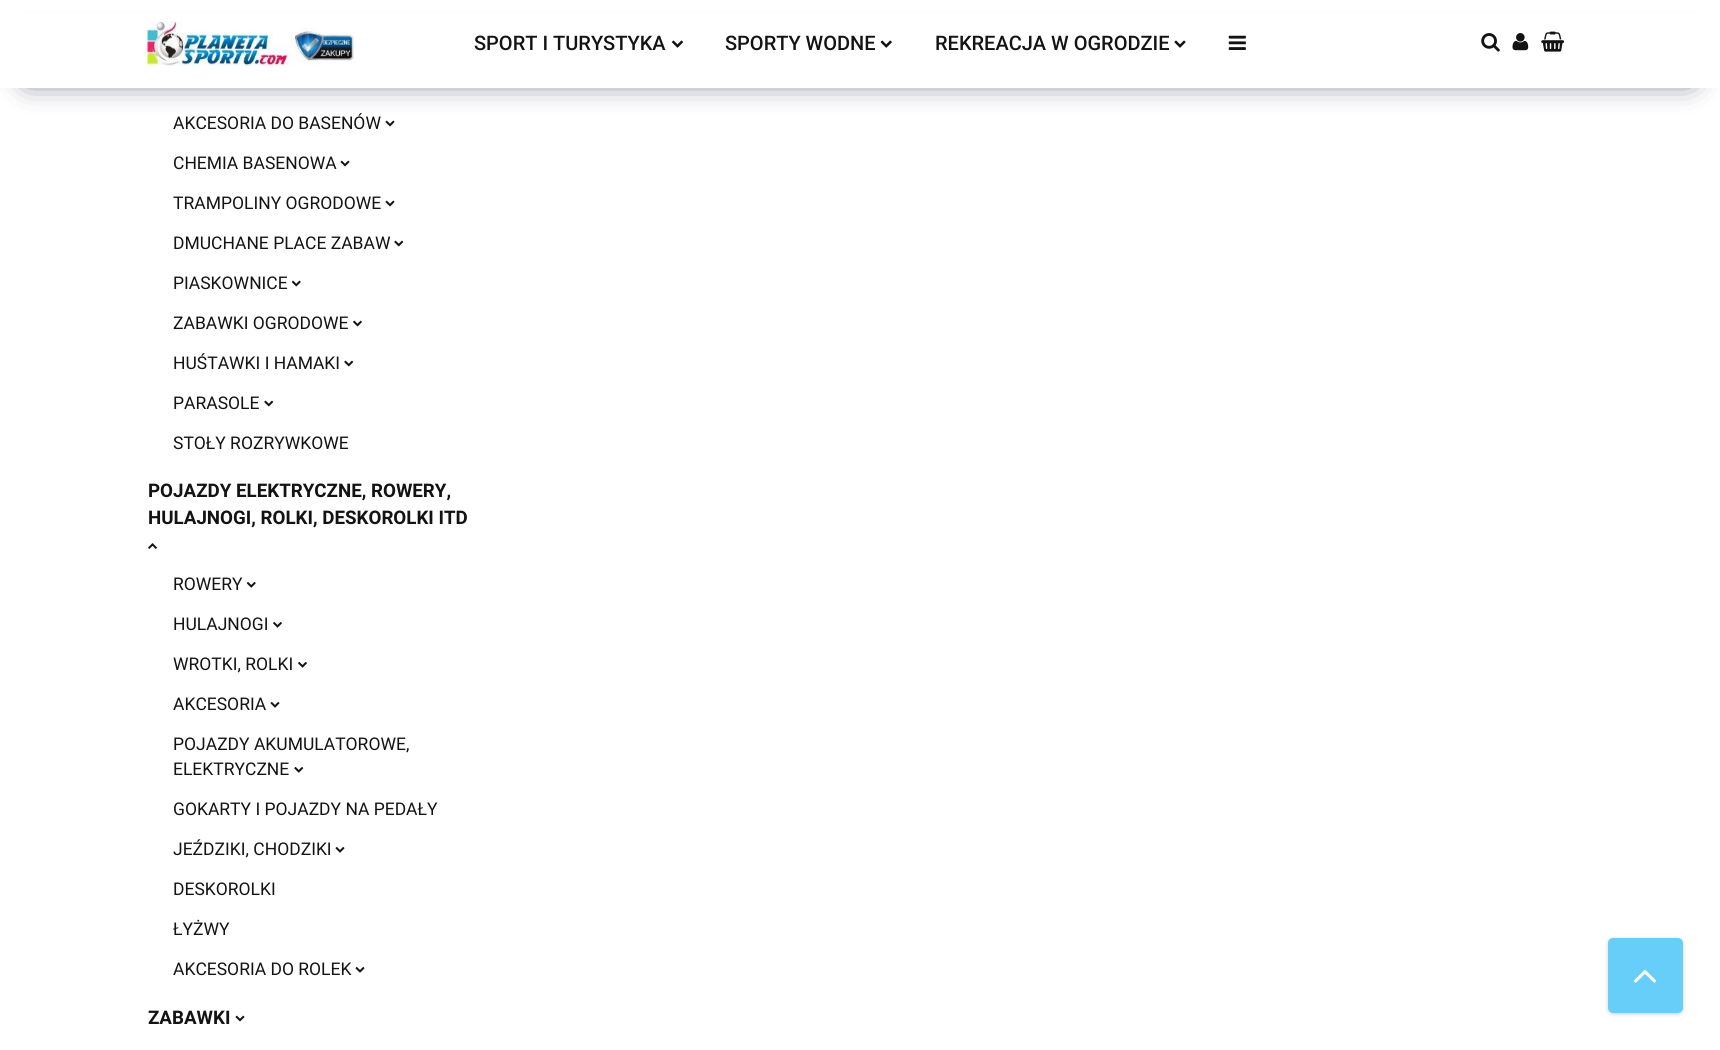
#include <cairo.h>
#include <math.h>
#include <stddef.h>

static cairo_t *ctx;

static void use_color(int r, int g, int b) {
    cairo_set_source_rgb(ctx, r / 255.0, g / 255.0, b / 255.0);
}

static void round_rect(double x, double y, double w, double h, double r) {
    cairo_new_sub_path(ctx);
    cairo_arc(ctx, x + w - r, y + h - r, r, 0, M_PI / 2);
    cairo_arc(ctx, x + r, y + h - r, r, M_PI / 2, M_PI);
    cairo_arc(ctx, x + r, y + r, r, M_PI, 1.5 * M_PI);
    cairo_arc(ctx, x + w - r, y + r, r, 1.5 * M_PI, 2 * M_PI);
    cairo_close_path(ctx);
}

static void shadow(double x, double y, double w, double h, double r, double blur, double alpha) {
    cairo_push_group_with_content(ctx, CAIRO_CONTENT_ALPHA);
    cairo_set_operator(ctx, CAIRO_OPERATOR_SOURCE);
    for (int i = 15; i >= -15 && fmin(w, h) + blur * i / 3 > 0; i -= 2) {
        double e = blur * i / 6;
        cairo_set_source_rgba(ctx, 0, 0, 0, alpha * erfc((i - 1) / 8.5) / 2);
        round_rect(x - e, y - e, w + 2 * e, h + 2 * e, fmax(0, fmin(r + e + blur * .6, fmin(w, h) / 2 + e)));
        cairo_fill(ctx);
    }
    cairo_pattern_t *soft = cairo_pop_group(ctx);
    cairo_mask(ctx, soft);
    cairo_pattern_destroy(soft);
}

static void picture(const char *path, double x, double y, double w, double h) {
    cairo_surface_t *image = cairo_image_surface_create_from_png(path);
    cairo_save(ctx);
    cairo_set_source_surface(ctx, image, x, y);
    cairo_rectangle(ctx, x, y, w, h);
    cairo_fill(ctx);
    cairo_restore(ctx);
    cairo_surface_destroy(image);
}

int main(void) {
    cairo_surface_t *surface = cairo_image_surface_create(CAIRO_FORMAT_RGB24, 1720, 1050);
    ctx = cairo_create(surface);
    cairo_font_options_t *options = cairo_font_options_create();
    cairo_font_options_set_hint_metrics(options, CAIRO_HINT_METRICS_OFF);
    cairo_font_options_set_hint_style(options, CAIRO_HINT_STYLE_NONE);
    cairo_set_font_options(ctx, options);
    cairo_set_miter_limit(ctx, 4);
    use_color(255, 255, 255);
    cairo_paint(ctx);
    picture("img9.png", 385, 120, 10, 7);
    use_color(66, 68, 90);
    shadow(28, 48, 1662, 30, 0, 15.5, 1);
    use_color(255, 255, 255);
    cairo_rectangle(ctx, 0, 14, 1720, 74);
    cairo_fill(ctx);
    picture("img1.png", 147, 21, 207, 45);
    cairo_select_font_face(ctx, "Roboto Medium", CAIRO_FONT_SLANT_NORMAL, CAIRO_FONT_WEIGHT_NORMAL);
    cairo_set_font_size(ctx, 20);
    use_color(19, 19, 19);
    cairo_move_to(ctx, 474, 50);
    cairo_show_text(ctx, "SPORT I TURYSTYKA");
    picture("img2.png", 671, 40, 13, 8);
    cairo_move_to(ctx, 725, 50);
    cairo_show_text(ctx, "SPORTY WODNE");
    picture("img3.png", 880, 40, 12, 8);
    cairo_move_to(ctx, 935, 50);
    cairo_show_text(ctx, "REKREACJA W OGRODZIE");
    picture("img4.png", 1174, 40, 12, 8);
    picture("img5.png", 1228, 35, 18, 15);
    picture("img6.png", 1481, 33, 19, 19);
    picture("img7.png", 1512, 33, 17, 18);
    picture("img8.png", 1541, 31, 24, 21);
    cairo_select_font_face(ctx, "Roboto", CAIRO_FONT_SLANT_NORMAL, CAIRO_FONT_WEIGHT_NORMAL);
    cairo_set_font_size(ctx, 17.5);
    cairo_move_to(ctx, 173, 129);
    cairo_show_text(ctx, "AKCESORIA DO BASENÓW");
    cairo_move_to(ctx, 173, 169);
    cairo_show_text(ctx, "CHEMIA BASENOWA");
    picture("img9.png", 340, 160, 10, 7);
    cairo_move_to(ctx, 173, 209);
    cairo_show_text(ctx, "TRAMPOLINY OGRODOWE");
    picture("img9.png", 385, 200, 10, 7);
    cairo_move_to(ctx, 173, 249);
    cairo_show_text(ctx, "DMUCHANE PLACE ZABAW");
    picture("img10.png", 394, 240, 10, 7);
    cairo_move_to(ctx, 173, 289);
    cairo_show_text(ctx, "PIASKOWNICE");
    picture("img11.png", 291, 280, 10, 7);
    cairo_move_to(ctx, 173, 329);
    cairo_show_text(ctx, "ZABAWKI OGRODOWE");
    picture("img12.png", 353, 320, 9, 7);
    cairo_move_to(ctx, 173, 369);
    cairo_show_text(ctx, "HUŚTAWKI I HAMAKI");
    picture("img10.png", 344, 360, 10, 7);
    cairo_move_to(ctx, 173, 409);
    cairo_show_text(ctx, "PARASOLE");
    picture("img10.png", 264, 400, 10, 7);
    cairo_move_to(ctx, 173, 449);
    cairo_show_text(ctx, "STOŁY ROZRYWKOWE");
    cairo_select_font_face(ctx, "Roboto", CAIRO_FONT_SLANT_NORMAL, CAIRO_FONT_WEIGHT_BOLD);
    cairo_set_font_size(ctx, 18.75);
    cairo_move_to(ctx, 148, 497);
    cairo_show_text(ctx, "POJAZDY ELEKTRYCZNE, ROWERY,");
    cairo_move_to(ctx, 148, 524);
    cairo_show_text(ctx, "HULAJNOGI, ROLKI, DESKOROLKI ITD");
    picture("img13.png", 148, 543, 9, 6);
    cairo_select_font_face(ctx, "Roboto", CAIRO_FONT_SLANT_NORMAL, CAIRO_FONT_WEIGHT_NORMAL);
    cairo_set_font_size(ctx, 17.5);
    cairo_move_to(ctx, 173, 590);
    cairo_show_text(ctx, "ROWERY");
    picture("img14.png", 246, 582, 10, 6);
    cairo_move_to(ctx, 173, 630);
    cairo_show_text(ctx, "HULAJNOGI");
    picture("img15.png", 273, 622, 9, 6);
    cairo_move_to(ctx, 173, 670);
    cairo_show_text(ctx, "WROTKI, ROLKI");
    picture("img15.png", 298, 662, 9, 6);
    cairo_move_to(ctx, 173, 710);
    cairo_show_text(ctx, "AKCESORIA");
    picture("img16.png", 270, 702, 10, 6);
    cairo_move_to(ctx, 173, 750);
    cairo_show_text(ctx, "POJAZDY AKUMULATOROWE,");
    cairo_move_to(ctx, 173, 775);
    cairo_show_text(ctx, "ELEKTRYCZNE");
    picture("img17.png", 294, 767, 10, 6);
    cairo_move_to(ctx, 173, 815);
    cairo_show_text(ctx, "GOKARTY I POJAZDY NA PEDAŁY");
    cairo_move_to(ctx, 173, 855);
    cairo_show_text(ctx, "JEŹDZIKI, CHODZIKI");
    picture("img16.png", 335, 847, 10, 6);
    cairo_move_to(ctx, 173, 895);
    cairo_show_text(ctx, "DESKOROLKI");
    cairo_move_to(ctx, 173, 935);
    cairo_show_text(ctx, "ŁYŻWY");
    cairo_move_to(ctx, 173, 975);
    cairo_show_text(ctx, "AKCESORIA DO ROLEK");
    picture("img16.png", 355, 967, 10, 6);
    cairo_select_font_face(ctx, "Roboto", CAIRO_FONT_SLANT_NORMAL, CAIRO_FONT_WEIGHT_BOLD);
    cairo_set_font_size(ctx, 18.75);
    cairo_move_to(ctx, 148, 1024);
    cairo_show_text(ctx, "ZABAWKI");
    picture("img9.png", 235, 1015, 10, 7);
    cairo_save(ctx);
    cairo_set_fill_rule(ctx, CAIRO_FILL_RULE_EVEN_ODD);
    cairo_new_path(ctx);
    cairo_move_to(ctx, 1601, 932);
    cairo_line_to(ctx, 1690, 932);
    cairo_line_to(ctx, 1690, 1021);
    cairo_line_to(ctx, 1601, 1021);
    cairo_close_path(ctx);
    cairo_move_to(ctx, 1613, 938);
    cairo_line_to(ctx, 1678, 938);
    cairo_curve_to(ctx, 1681, 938, 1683, 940, 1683, 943);
    cairo_line_to(ctx, 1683, 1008);
    cairo_curve_to(ctx, 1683, 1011, 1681, 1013, 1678, 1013);
    cairo_line_to(ctx, 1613, 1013);
    cairo_curve_to(ctx, 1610, 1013, 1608, 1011, 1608, 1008);
    cairo_line_to(ctx, 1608, 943);
    cairo_curve_to(ctx, 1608, 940, 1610, 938, 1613, 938);
    cairo_close_path(ctx);
    cairo_clip(ctx);
    use_color(0, 0, 0);
    shadow(1608, 939, 75, 75, 5, 2, 0.2);
    cairo_restore(ctx);
    cairo_set_source_rgba(ctx, 0, 0.682, 0.953, 0.6);
    round_rect(1608, 938, 75, 75, 5);
    cairo_fill(ctx);
    picture("img18.png", 1633, 969, 24, 14);
    cairo_surface_write_to_png(surface, "result.png");
    cairo_font_options_destroy(options);
    cairo_destroy(ctx);
    cairo_surface_destroy(surface);
    return 0;
}
